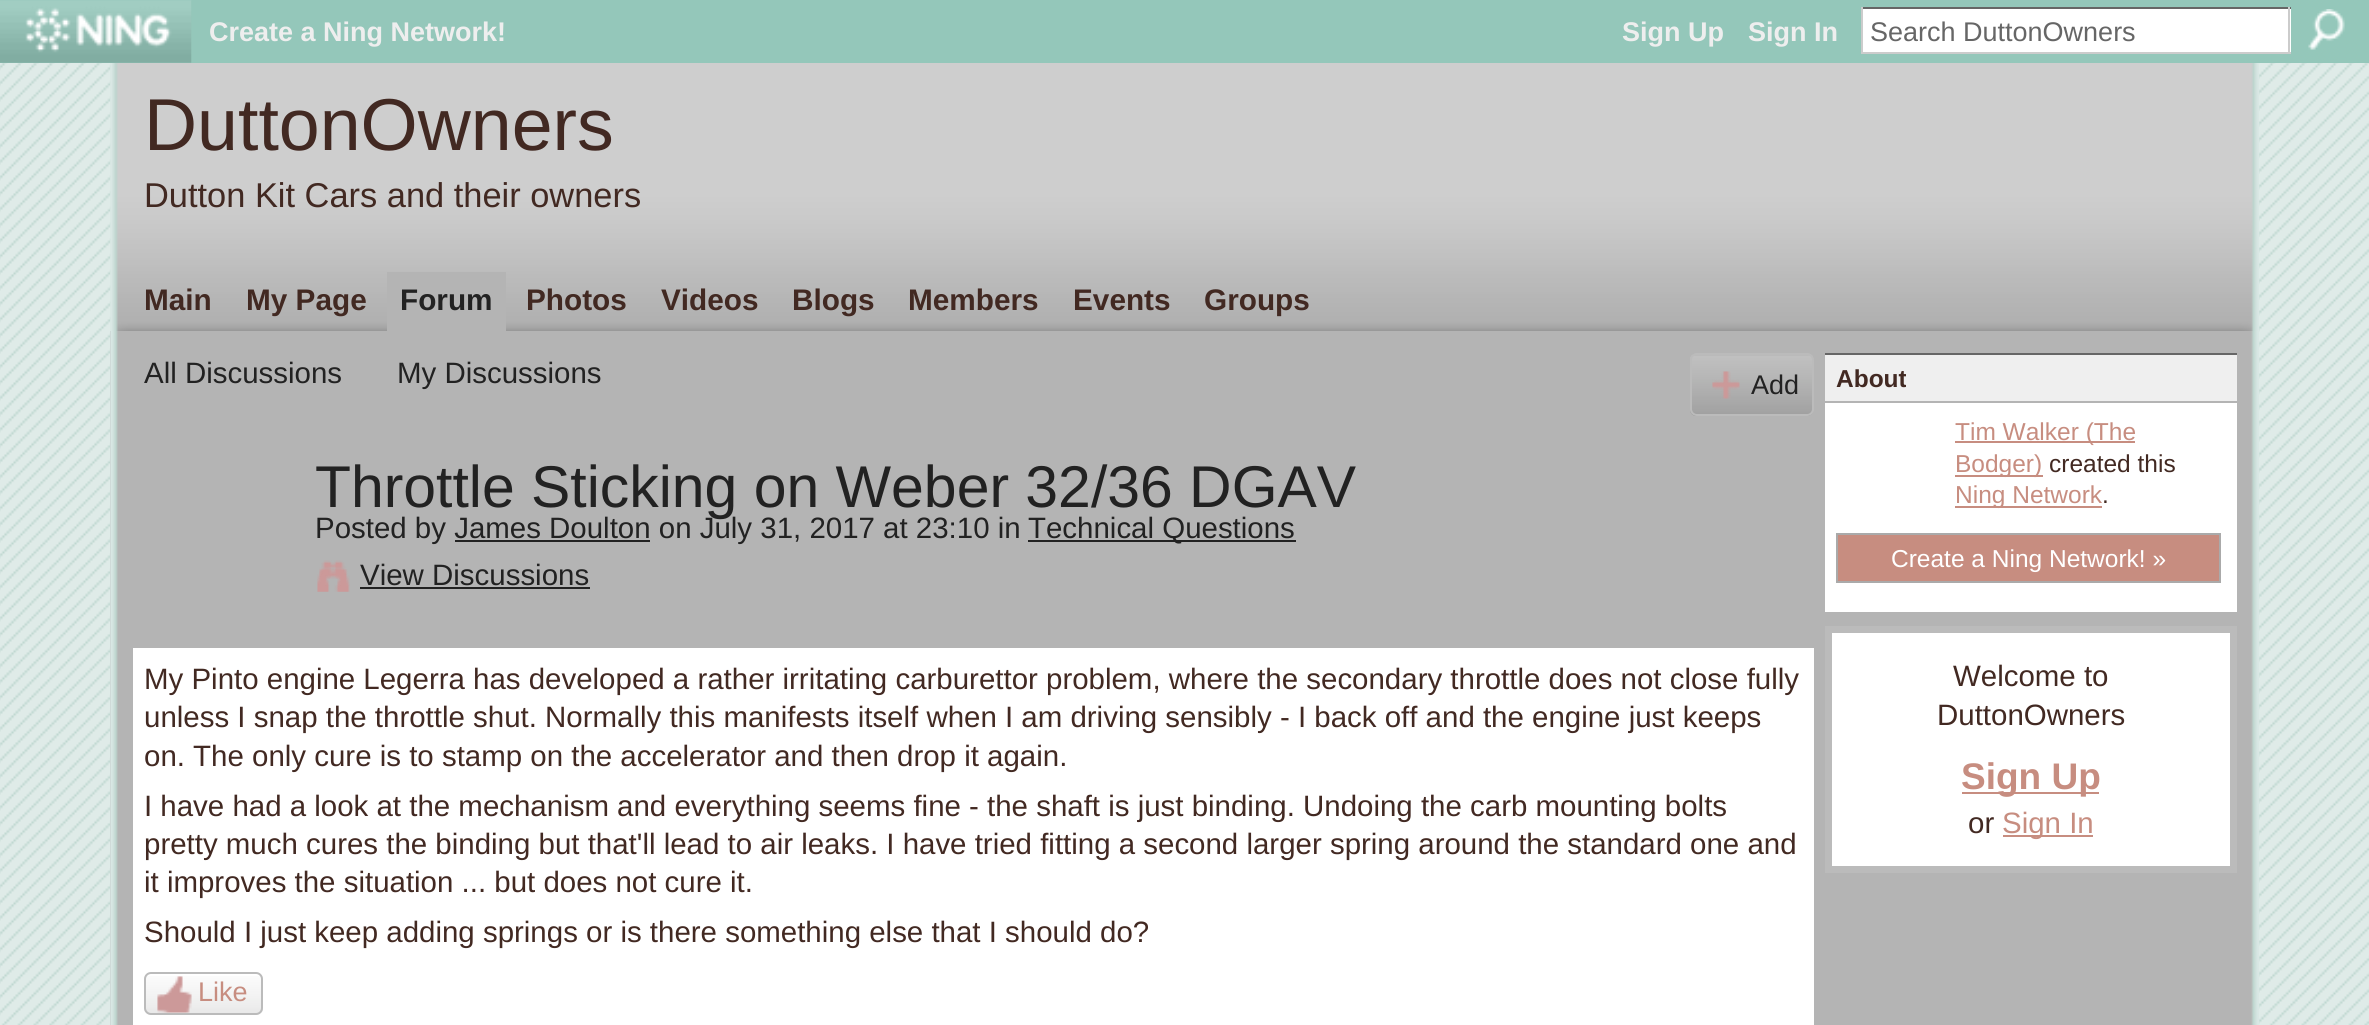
#include <cairo.h>
#include <math.h>
#include <stddef.h>

static cairo_t *ctx;

static void use_color(int r, int g, int b) {
    cairo_set_source_rgb(ctx, r / 255.0, g / 255.0, b / 255.0);
}

static void round_rect(double x, double y, double w, double h, double r) {
    cairo_new_sub_path(ctx);
    cairo_arc(ctx, x + w - r, y + h - r, r, 0, M_PI / 2);
    cairo_arc(ctx, x + r, y + h - r, r, M_PI / 2, M_PI);
    cairo_arc(ctx, x + r, y + r, r, M_PI, 1.5 * M_PI);
    cairo_arc(ctx, x + w - r, y + r, r, 1.5 * M_PI, 2 * M_PI);
    cairo_close_path(ctx);
}

static void picture(const char *path, double x, double y, double w, double h) {
    cairo_surface_t *image = cairo_image_surface_create_from_png(path);
    cairo_save(ctx);
    cairo_set_source_surface(ctx, image, x, y);
    cairo_rectangle(ctx, x, y, w, h);
    cairo_fill(ctx);
    cairo_restore(ctx);
    cairo_surface_destroy(image);
}

int main(void) {
    cairo_surface_t *surface = cairo_image_surface_create(CAIRO_FORMAT_RGB24, 2369, 1025);
    ctx = cairo_create(surface);
    cairo_font_options_t *options = cairo_font_options_create();
    cairo_font_options_set_hint_metrics(options, CAIRO_HINT_METRICS_OFF);
    cairo_font_options_set_hint_style(options, CAIRO_HINT_STYLE_NONE);
    cairo_set_font_options(ctx, options);
    cairo_set_miter_limit(ctx, 4);
    use_color(255, 255, 255);
    cairo_paint(ctx);
    picture("img1.png", 0, 63, 2369, 962);
    use_color(148, 199, 186);
    cairo_rectangle(ctx, 0, 0, 2369, 63);
    cairo_fill(ctx);
    picture("img2.png", 0, 0, 192, 63);
    picture("img3.png", 25, 7, 147, 46);
    cairo_select_font_face(ctx, "Liberation Sans", CAIRO_FONT_SLANT_NORMAL, CAIRO_FONT_WEIGHT_BOLD);
    cairo_set_font_size(ctx, 27);
    use_color(238, 238, 238);
    cairo_move_to(ctx, 209, 41);
    cairo_show_text(ctx, "Create a Ning Network!");
    cairo_move_to(ctx, 1622, 41);
    cairo_show_text(ctx, "Sign Up");
    cairo_move_to(ctx, 1748, 41);
    cairo_show_text(ctx, "Sign In");
    use_color(255, 255, 255);
    cairo_rectangle(ctx, 1863, 9, 428, 43);
    cairo_fill(ctx);
    use_color(102, 102, 102);
    cairo_rectangle(ctx, 1861, 7, 430, 2);
    cairo_fill(ctx);
    use_color(204, 204, 204);
    cairo_rectangle(ctx, 2288, 7, 2, 47);
    cairo_fill(ctx);
    cairo_rectangle(ctx, 1861, 52, 430, 2);
    cairo_fill(ctx);
    cairo_rectangle(ctx, 1861, 7, 2, 47);
    cairo_fill(ctx);
    cairo_select_font_face(ctx, "Liberation Sans", CAIRO_FONT_SLANT_NORMAL, CAIRO_FONT_WEIGHT_NORMAL);
    use_color(102, 102, 102);
    cairo_move_to(ctx, 1870, 41);
    cairo_show_text(ctx, "Search DuttonOwners");
    picture("img4.png", 2308, 9, 37, 41);
    picture("img5.png", 110, 63, 2149, 268);
    cairo_set_font_size(ctx, 73.5);
    use_color(66, 41, 34);
    cairo_move_to(ctx, 144, 150);
    cairo_show_text(ctx, "DuttonOwners");
    cairo_set_font_size(ctx, 34.4);
    cairo_move_to(ctx, 144, 207);
    cairo_show_text(ctx, "Dutton Kit Cars and their owners");
    cairo_select_font_face(ctx, "Liberation Sans", CAIRO_FONT_SLANT_NORMAL, CAIRO_FONT_WEIGHT_BOLD);
    cairo_set_font_size(ctx, 29.75);
    cairo_move_to(ctx, 144, 310);
    cairo_show_text(ctx, "Main");
    cairo_move_to(ctx, 246, 310);
    cairo_show_text(ctx, "My Page");
    use_color(180, 180, 180);
    cairo_rectangle(ctx, 387, 272, 119, 59);
    cairo_fill(ctx);
    use_color(34, 34, 34);
    cairo_move_to(ctx, 400, 310);
    cairo_show_text(ctx, "Forum");
    use_color(66, 41, 34);
    cairo_move_to(ctx, 526, 310);
    cairo_show_text(ctx, "Photos");
    cairo_move_to(ctx, 661, 310);
    cairo_show_text(ctx, "Videos");
    cairo_move_to(ctx, 792, 310);
    cairo_show_text(ctx, "Blogs");
    cairo_move_to(ctx, 908, 310);
    cairo_show_text(ctx, "Members");
    cairo_move_to(ctx, 1073, 310);
    cairo_show_text(ctx, "Events");
    cairo_move_to(ctx, 1204, 310);
    cairo_show_text(ctx, "Groups");
    use_color(180, 180, 180);
    cairo_rectangle(ctx, 110, 331, 2143, 694);
    cairo_fill(ctx);
    picture("img6.png", 110, 331, 2149, 694);
    cairo_select_font_face(ctx, "Liberation Sans", CAIRO_FONT_SLANT_NORMAL, CAIRO_FONT_WEIGHT_NORMAL);
    cairo_set_font_size(ctx, 29.45);
    use_color(34, 34, 34);
    cairo_move_to(ctx, 144, 383);
    cairo_show_text(ctx, "All Discussions");
    cairo_move_to(ctx, 397, 383);
    cairo_show_text(ctx, "My Discussions");
    picture("img7.png", 1690, 355, 123, 61);
    round_rect(1691, 354, 122, 61, 6);
    use_color(187, 187, 187);
    cairo_stroke(ctx);
    picture("img8.png", 1712, 371, 28, 28);
    cairo_set_font_size(ctx, 27);
    use_color(34, 34, 34);
    cairo_move_to(ctx, 1751, 394);
    cairo_show_text(ctx, "Add");
    cairo_set_font_size(ctx, 58.9);
    cairo_move_to(ctx, 315, 507);
    cairo_show_text(ctx, "Throttle Sticking on Weber 32/36 DGAV");
    cairo_set_font_size(ctx, 29.45);
    cairo_move_to(ctx, 315, 538);
    cairo_show_text(ctx, "Posted by James Doulton on July 31, 2017 at 23:10 in");
    cairo_rectangle(ctx, 1028, 540, 268, 2);
    cairo_fill(ctx);
    cairo_move_to(ctx, 1028, 538);
    cairo_show_text(ctx, "Technical Questions");
    cairo_rectangle(ctx, 455, 540, 195, 2);
    cairo_fill(ctx);
    picture("img9.png", 317, 560, 33, 32);
    cairo_move_to(ctx, 360, 585);
    cairo_show_text(ctx, "View Discussions");
    cairo_rectangle(ctx, 360, 587, 230, 2);
    cairo_fill(ctx);
    use_color(255, 255, 255);
    cairo_rectangle(ctx, 133, 648, 1681, 377);
    cairo_fill(ctx);
    use_color(66, 41, 34);
    cairo_move_to(ctx, 144, 689);
    cairo_show_text(ctx, "My Pinto engine Legerra has developed a rather irritating carburettor problem, where the secondary throttle does not close fully");
    cairo_move_to(ctx, 144, 727);
    cairo_show_text(ctx, "unless I snap the throttle shut. Normally this manifests itself when I am driving sensibly - I back off and the engine just keeps");
    cairo_move_to(ctx, 144, 766);
    cairo_show_text(ctx, "on. The only cure is to stamp on the accelerator and then drop it again.");
    cairo_move_to(ctx, 144, 816);
    cairo_show_text(ctx, "I have had a look at the mechanism and everything seems fine - the shaft is just binding. Undoing the carb mounting bolts");
    cairo_move_to(ctx, 144, 854);
    cairo_show_text(ctx, "pretty much cures the binding but that'll lead to air leaks. I have tried fitting a second larger spring around the standard one and");
    cairo_move_to(ctx, 144, 892);
    cairo_show_text(ctx, "it improves the situation ... but does not cure it.");
    cairo_move_to(ctx, 144, 942);
    cairo_show_text(ctx, "Should I just keep adding springs or is there something else that I should do?");
    picture("img10.png", 144, 976, 119, 39);
    round_rect(145, 973, 117, 41, 6);
    use_color(187, 187, 187);
    cairo_stroke(ctx);
    picture("img11.png", 157, 976, 35, 37);
    cairo_set_font_size(ctx, 27);
    use_color(199, 141, 128);
    cairo_move_to(ctx, 198, 1001);
    cairo_show_text(ctx, "Like");
    use_color(239, 239, 239);
    cairo_rectangle(ctx, 1825, 355, 412, 46);
    cairo_fill(ctx);
    use_color(102, 102, 102);
    cairo_rectangle(ctx, 1825, 353, 412, 2);
    cairo_fill(ctx);
    cairo_save(ctx);
    cairo_rectangle(ctx, 1836, 362, 70, 32);
    cairo_clip(ctx);
    cairo_select_font_face(ctx, "Liberation Sans", CAIRO_FONT_SLANT_NORMAL, CAIRO_FONT_WEIGHT_BOLD);
    cairo_set_font_size(ctx, 24.5);
    use_color(66, 41, 34);
    cairo_move_to(ctx, 1836, 387);
    cairo_show_text(ctx, "About");
    cairo_restore(ctx);
    use_color(255, 255, 255);
    cairo_rectangle(ctx, 1825, 403, 412, 209);
    cairo_fill(ctx);
    use_color(199, 141, 128);
    cairo_rectangle(ctx, 1955, 441, 180, 2);
    cairo_fill(ctx);
    cairo_set_font_size(ctx, 24.5);
    cairo_move_to(ctx, 1955, 440);
    cairo_show_text(ctx, "Tim Walker (The");
    cairo_rectangle(ctx, 1955, 475, 88, 2);
    cairo_fill(ctx);
    cairo_move_to(ctx, 1955, 472);
    cairo_show_text(ctx, "Bodger)");
    use_color(66, 41, 34);
    cairo_move_to(ctx, 2049, 472);
    cairo_show_text(ctx, "created this");
    use_color(199, 141, 128);
    cairo_rectangle(ctx, 1955, 506, 147, 2);
    cairo_fill(ctx);
    cairo_move_to(ctx, 1955, 503);
    cairo_show_text(ctx, "Ning Network");
    use_color(66, 41, 34);
    cairo_move_to(ctx, 2102, 503);
    cairo_show_text(ctx, ".");
    use_color(199, 141, 128);
    cairo_rectangle(ctx, 1837, 534, 383, 48);
    cairo_fill_preserve(ctx);
    use_color(170, 170, 170);
    cairo_stroke(ctx);
    use_color(255, 255, 255);
    cairo_move_to(ctx, 1891, 567);
    cairo_show_text(ctx, "Create a Ning Network! »");
    cairo_rectangle(ctx, 1828.5, 629.5, 405, 240);
    cairo_fill_preserve(ctx);
    use_color(187, 187, 187);
    cairo_set_line_width(ctx, 7);
    cairo_stroke(ctx);
    cairo_set_font_size(ctx, 29.45);
    use_color(66, 41, 34);
    cairo_move_to(ctx, 1953, 686);
    cairo_show_text(ctx, "Welcome to");
    cairo_move_to(ctx, 1937, 725);
    cairo_show_text(ctx, "DuttonOwners");
    use_color(199, 141, 128);
    cairo_rectangle(ctx, 1962, 792, 137, 2);
    cairo_fill(ctx);
    cairo_select_font_face(ctx, "Liberation Sans", CAIRO_FONT_SLANT_NORMAL, CAIRO_FONT_WEIGHT_BOLD);
    cairo_set_font_size(ctx, 37);
    cairo_move_to(ctx, 1961, 789);
    cairo_show_text(ctx, "Sign Up");
    cairo_select_font_face(ctx, "Liberation Sans", CAIRO_FONT_SLANT_NORMAL, CAIRO_FONT_WEIGHT_NORMAL);
    cairo_set_font_size(ctx, 29.45);
    use_color(66, 41, 34);
    cairo_move_to(ctx, 1968, 833);
    cairo_show_text(ctx, "or");
    use_color(199, 141, 128);
    cairo_rectangle(ctx, 2003, 835, 90, 2);
    cairo_fill(ctx);
    cairo_move_to(ctx, 2002, 833);
    cairo_show_text(ctx, "Sign In");
    cairo_surface_write_to_png(surface, "result.png");
    cairo_font_options_destroy(options);
    cairo_destroy(ctx);
    cairo_surface_destroy(surface);
    return 0;
}
